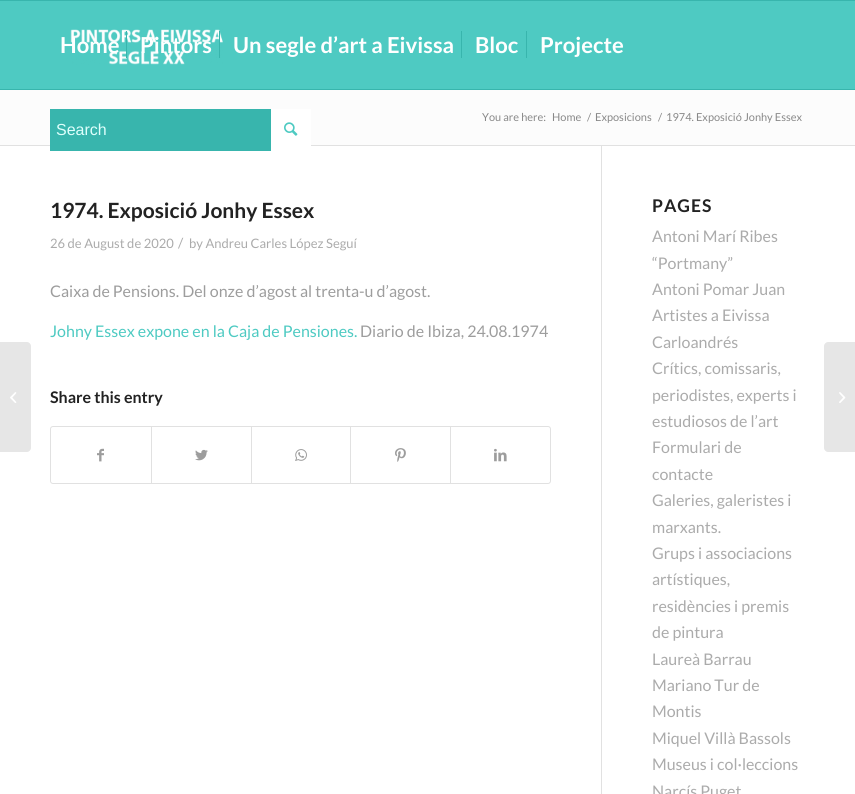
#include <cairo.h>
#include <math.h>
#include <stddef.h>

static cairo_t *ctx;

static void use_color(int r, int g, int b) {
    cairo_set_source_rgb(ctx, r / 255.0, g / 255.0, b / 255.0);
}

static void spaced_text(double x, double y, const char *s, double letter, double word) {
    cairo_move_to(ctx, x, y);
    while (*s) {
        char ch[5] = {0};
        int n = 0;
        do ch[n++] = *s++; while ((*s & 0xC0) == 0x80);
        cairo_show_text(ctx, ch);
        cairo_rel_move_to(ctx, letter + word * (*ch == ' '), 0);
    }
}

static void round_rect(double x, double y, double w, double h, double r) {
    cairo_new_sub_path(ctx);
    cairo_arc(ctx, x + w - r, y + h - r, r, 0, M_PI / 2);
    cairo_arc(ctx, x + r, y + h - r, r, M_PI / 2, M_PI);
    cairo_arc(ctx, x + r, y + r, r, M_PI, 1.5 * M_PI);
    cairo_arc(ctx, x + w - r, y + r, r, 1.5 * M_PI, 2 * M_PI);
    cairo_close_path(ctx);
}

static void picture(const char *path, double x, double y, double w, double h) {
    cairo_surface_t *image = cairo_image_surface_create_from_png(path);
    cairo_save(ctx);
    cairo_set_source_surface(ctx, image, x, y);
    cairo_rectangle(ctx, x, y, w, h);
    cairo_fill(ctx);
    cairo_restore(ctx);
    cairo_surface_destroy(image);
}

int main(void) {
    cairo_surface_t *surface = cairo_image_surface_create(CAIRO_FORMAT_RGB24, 855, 794);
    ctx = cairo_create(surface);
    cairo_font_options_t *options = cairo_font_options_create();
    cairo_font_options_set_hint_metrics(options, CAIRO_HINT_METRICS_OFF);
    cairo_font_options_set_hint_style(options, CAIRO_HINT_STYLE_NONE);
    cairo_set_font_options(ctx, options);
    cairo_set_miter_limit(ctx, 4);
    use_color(252, 252, 252);
    cairo_paint(ctx);
    use_color(78, 202, 194);
    cairo_rectangle(ctx, 0, 1, 855, 88);
    cairo_fill(ctx);
    use_color(56, 181, 173);
    cairo_rectangle(ctx, 0, 0, 855, 1);
    cairo_fill(ctx);
    cairo_rectangle(ctx, 0, 89, 855, 1);
    cairo_fill(ctx);
    picture("img1.png", 70, 29, 153, 36);
    cairo_select_font_face(ctx, "Lato", CAIRO_FONT_SLANT_NORMAL, CAIRO_FONT_WEIGHT_BOLD);
    cairo_set_font_size(ctx, 22);
    use_color(255, 255, 255);
    cairo_move_to(ctx, 60, 53);
    cairo_show_text(ctx, "Home");
    cairo_move_to(ctx, 140, 53);
    cairo_show_text(ctx, "Pintors");
    use_color(56, 181, 173);
    cairo_rectangle(ctx, 126, 31, 1, 27);
    cairo_fill(ctx);
    use_color(255, 255, 255);
    cairo_move_to(ctx, 233, 53);
    cairo_show_text(ctx, "Un segle d’art a Eivissa");
    use_color(56, 181, 173);
    cairo_rectangle(ctx, 219, 31, 1, 27);
    cairo_fill(ctx);
    use_color(255, 255, 255);
    cairo_move_to(ctx, 475, 53);
    cairo_show_text(ctx, "Bloc");
    use_color(56, 181, 173);
    cairo_rectangle(ctx, 461, 31, 1, 27);
    cairo_fill(ctx);
    use_color(255, 255, 255);
    cairo_move_to(ctx, 540, 53);
    cairo_show_text(ctx, "Projecte");
    use_color(56, 181, 173);
    cairo_rectangle(ctx, 526, 31, 1, 27);
    cairo_fill(ctx);
    use_color(255, 255, 255);
    cairo_rectangle(ctx, 0, 146, 855, 648);
    cairo_fill(ctx);
    use_color(225, 225, 225);
    cairo_rectangle(ctx, 0, 145, 855, 1);
    cairo_fill(ctx);
    use_color(56, 181, 173);
    cairo_rectangle(ctx, 50, 109, 221, 42);
    cairo_fill(ctx);
    cairo_select_font_face(ctx, "Liberation Sans", CAIRO_FONT_SLANT_NORMAL, CAIRO_FONT_WEIGHT_NORMAL);
    cairo_set_font_size(ctx, 16);
    use_color(222, 255, 252);
    cairo_move_to(ctx, 56, 135);
    cairo_show_text(ctx, "Search");
    use_color(255, 255, 255);
    cairo_rectangle(ctx, 271, 109, 40, 37);
    cairo_fill(ctx);
    picture("img2.png", 284, 122, 14, 14);
    use_color(230, 230, 230);
    cairo_new_path(ctx);
    cairo_move_to(ctx, 0, 342);
    cairo_line_to(ctx, 27, 342);
    cairo_curve_to(ctx, 29, 342, 31, 344, 31, 346);
    cairo_line_to(ctx, 31, 448);
    cairo_curve_to(ctx, 31, 450, 29, 452, 27, 452);
    cairo_line_to(ctx, 0, 452);
    cairo_close_path(ctx);
    cairo_fill(ctx);
    picture("img3.png", 10, 392, 7, 11);
    cairo_select_font_face(ctx, "Lato", CAIRO_FONT_SLANT_NORMAL, CAIRO_FONT_WEIGHT_NORMAL);
    cairo_set_font_size(ctx, 11);
    use_color(136, 136, 136);
    cairo_move_to(ctx, 482, 121);
    cairo_show_text(ctx, "You are here:");
    cairo_move_to(ctx, 552, 121);
    cairo_show_text(ctx, "Home");
    cairo_move_to(ctx, 587, 121);
    cairo_show_text(ctx, "/");
    cairo_move_to(ctx, 595, 121);
    cairo_show_text(ctx, "Exposicions");
    cairo_move_to(ctx, 658, 121);
    cairo_show_text(ctx, "/");
    cairo_move_to(ctx, 666, 121);
    cairo_show_text(ctx, "1974. Exposició Jonhy Essex");
    cairo_select_font_face(ctx, "Lato", CAIRO_FONT_SLANT_NORMAL, CAIRO_FONT_WEIGHT_BOLD);
    cairo_set_font_size(ctx, 21);
    use_color(34, 34, 34);
    cairo_move_to(ctx, 50, 218);
    cairo_show_text(ctx, "1974. Exposició Jonhy Essex");
    cairo_select_font_face(ctx, "Lato", CAIRO_FONT_SLANT_NORMAL, CAIRO_FONT_WEIGHT_NORMAL);
    cairo_set_font_size(ctx, 13);
    use_color(171, 171, 171);
    cairo_move_to(ctx, 50, 248);
    cairo_show_text(ctx, "26 de August de 2020");
    cairo_set_font_size(ctx, 14);
    cairo_move_to(ctx, 178, 248);
    cairo_show_text(ctx, "/");
    cairo_set_font_size(ctx, 13);
    cairo_move_to(ctx, 189, 248);
    cairo_show_text(ctx, "by Andreu Carles López Seguí");
    cairo_set_font_size(ctx, 16);
    use_color(157, 157, 157);
    cairo_move_to(ctx, 50, 297);
    cairo_show_text(ctx, "Caixa de Pensions. Del onze d’agost al trenta-u d’agost.");
    use_color(78, 202, 194);
    cairo_move_to(ctx, 50, 337);
    cairo_show_text(ctx, "Johny Essex expone en la Caja de Pensiones.");
    use_color(157, 157, 157);
    cairo_move_to(ctx, 360, 337);
    cairo_show_text(ctx, "Diario de Ibiza, 24.08.1974");
    cairo_select_font_face(ctx, "Lato", CAIRO_FONT_SLANT_NORMAL, CAIRO_FONT_WEIGHT_BOLD);
    use_color(34, 34, 34);
    cairo_move_to(ctx, 50, 403);
    cairo_show_text(ctx, "Share this entry");
    round_rect(50.5, 426.5, 500, 57, 2.5);
    use_color(225, 225, 225);
    cairo_set_line_width(ctx, 1);
    cairo_stroke(ctx);
    picture("img4.png", 97, 448, 7, 14);
    cairo_rectangle(ctx, 151, 427, 1, 56);
    cairo_fill(ctx);
    picture("img5.png", 195, 449, 13, 12);
    cairo_rectangle(ctx, 251, 427, 1, 56);
    cairo_fill(ctx);
    picture("img6.png", 295, 449, 12, 12);
    cairo_rectangle(ctx, 350, 427, 1, 56);
    cairo_fill(ctx);
    picture("img7.png", 395, 448, 11, 14);
    cairo_rectangle(ctx, 450, 427, 1, 56);
    cairo_fill(ctx);
    picture("img8.png", 494, 448, 13, 14);
    cairo_rectangle(ctx, 601, 146, 1, 648);
    cairo_fill(ctx);
    cairo_set_font_size(ctx, 17.5);
    use_color(34, 34, 34);
    spaced_text(652, 212, "PAGES", 1, 0);
    cairo_select_font_face(ctx, "Lato", CAIRO_FONT_SLANT_NORMAL, CAIRO_FONT_WEIGHT_NORMAL);
    cairo_set_font_size(ctx, 16);
    use_color(171, 171, 171);
    cairo_move_to(ctx, 652, 242);
    cairo_show_text(ctx, "Antoni Marí Ribes");
    cairo_move_to(ctx, 652, 269);
    cairo_show_text(ctx, "“Portmany”");
    cairo_move_to(ctx, 652, 295);
    cairo_show_text(ctx, "Antoni Pomar Juan");
    cairo_move_to(ctx, 652, 321);
    cairo_show_text(ctx, "Artistes a Eivissa");
    cairo_move_to(ctx, 652, 348);
    cairo_show_text(ctx, "Carloandrés");
    cairo_move_to(ctx, 652, 374);
    cairo_show_text(ctx, "Crítics, comissaris,");
    cairo_move_to(ctx, 652, 401);
    cairo_show_text(ctx, "periodistes, experts i");
    cairo_move_to(ctx, 652, 427);
    cairo_show_text(ctx, "estudiosos de l’art");
    cairo_move_to(ctx, 652, 453);
    cairo_show_text(ctx, "Formulari de");
    cairo_move_to(ctx, 652, 480);
    cairo_show_text(ctx, "contacte");
    cairo_move_to(ctx, 652, 506);
    cairo_show_text(ctx, "Galeries, galeristes i");
    cairo_move_to(ctx, 652, 533);
    cairo_show_text(ctx, "marxants.");
    cairo_move_to(ctx, 652, 559);
    cairo_show_text(ctx, "Grups i associacions");
    cairo_move_to(ctx, 652, 585);
    cairo_show_text(ctx, "artístiques,");
    cairo_move_to(ctx, 652, 612);
    cairo_show_text(ctx, "residències i premis");
    cairo_move_to(ctx, 652, 638);
    cairo_show_text(ctx, "de pintura");
    cairo_move_to(ctx, 652, 665);
    cairo_show_text(ctx, "Laureà Barrau");
    cairo_move_to(ctx, 652, 691);
    cairo_show_text(ctx, "Mariano Tur de");
    cairo_move_to(ctx, 652, 717);
    cairo_show_text(ctx, "Montis");
    cairo_move_to(ctx, 652, 744);
    cairo_show_text(ctx, "Miquel Villà Bassols");
    cairo_move_to(ctx, 652, 770);
    cairo_show_text(ctx, "Museus i col·leccions");
    cairo_move_to(ctx, 652, 797);
    cairo_show_text(ctx, "Narcís Puget");
    use_color(230, 230, 230);
    cairo_new_path(ctx);
    cairo_move_to(ctx, 828, 342);
    cairo_line_to(ctx, 855, 342);
    cairo_line_to(ctx, 855, 452);
    cairo_line_to(ctx, 828, 452);
    cairo_curve_to(ctx, 826, 452, 824, 450, 824, 448);
    cairo_line_to(ctx, 824, 346);
    cairo_curve_to(ctx, 824, 344, 826, 342, 828, 342);
    cairo_close_path(ctx);
    cairo_fill(ctx);
    picture("img9.png", 839, 392, 7, 11);
    cairo_surface_write_to_png(surface, "result.png");
    cairo_font_options_destroy(options);
    cairo_destroy(ctx);
    cairo_surface_destroy(surface);
    return 0;
}
